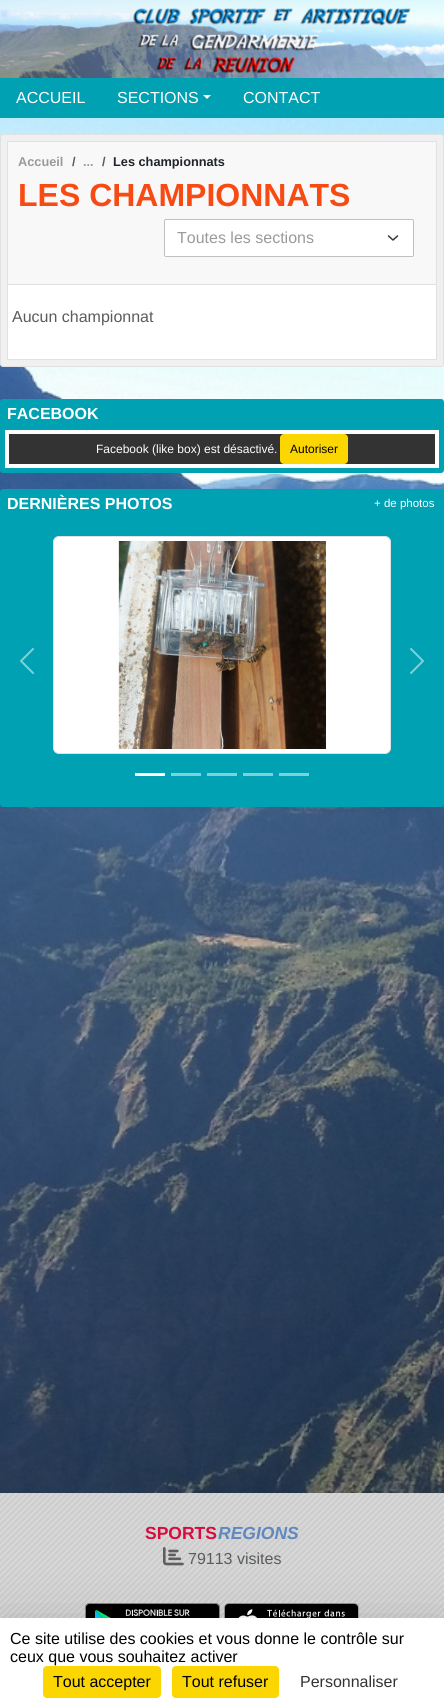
#include <cairo.h>
#include <math.h>
#include <stddef.h>

static cairo_t *ctx;

static void use_color(int r, int g, int b) {
    cairo_set_source_rgb(ctx, r / 255.0, g / 255.0, b / 255.0);
}

static void round_rect(double x, double y, double w, double h, double r) {
    cairo_new_sub_path(ctx);
    cairo_arc(ctx, x + w - r, y + h - r, r, 0, M_PI / 2);
    cairo_arc(ctx, x + r, y + h - r, r, M_PI / 2, M_PI);
    cairo_arc(ctx, x + r, y + r, r, M_PI, 1.5 * M_PI);
    cairo_arc(ctx, x + w - r, y + r, r, 1.5 * M_PI, 2 * M_PI);
    cairo_close_path(ctx);
}

static void shadow(double x, double y, double w, double h, double r, double blur, double alpha) {
    cairo_push_group_with_content(ctx, CAIRO_CONTENT_ALPHA);
    cairo_set_operator(ctx, CAIRO_OPERATOR_SOURCE);
    for (int i = 15; i >= -15 && fmin(w, h) + blur * i / 3 > 0; i -= 2) {
        double e = blur * i / 6;
        cairo_set_source_rgba(ctx, 0, 0, 0, alpha * erfc((i - 1) / 8.5) / 2);
        round_rect(x - e, y - e, w + 2 * e, h + 2 * e, fmax(0, fmin(r + e + blur * .6, fmin(w, h) / 2 + e)));
        cairo_fill(ctx);
    }
    cairo_pattern_t *soft = cairo_pop_group(ctx);
    cairo_mask(ctx, soft);
    cairo_pattern_destroy(soft);
}

static void picture(const char *path, double x, double y, double w, double h) {
    cairo_surface_t *image = cairo_image_surface_create_from_png(path);
    cairo_save(ctx);
    cairo_set_source_surface(ctx, image, x, y);
    cairo_rectangle(ctx, x, y, w, h);
    cairo_fill(ctx);
    cairo_restore(ctx);
    cairo_surface_destroy(image);
}

int main(void) {
    cairo_surface_t *surface = cairo_image_surface_create(CAIRO_FORMAT_RGB24, 444, 1708);
    ctx = cairo_create(surface);
    cairo_font_options_t *options = cairo_font_options_create();
    cairo_font_options_set_hint_metrics(options, CAIRO_HINT_METRICS_OFF);
    cairo_font_options_set_hint_style(options, CAIRO_HINT_STYLE_NONE);
    cairo_set_font_options(ctx, options);
    cairo_set_miter_limit(ctx, 4);
    use_color(255, 255, 255);
    cairo_paint(ctx);
    picture("img1.png", 0, 118, 444, 1375);
    picture("img2.png", 0, 0, 444, 78);
    use_color(0, 161, 179);
    cairo_rectangle(ctx, 0, 78, 444, 40);
    cairo_fill(ctx);
    cairo_select_font_face(ctx, "Liberation Sans", CAIRO_FONT_SLANT_NORMAL, CAIRO_FONT_WEIGHT_NORMAL);
    cairo_set_font_size(ctx, 16);
    use_color(255, 255, 255);
    cairo_move_to(ctx, 16, 103);
    cairo_show_text(ctx, "ACCUEIL");
    cairo_move_to(ctx, 117, 103);
    cairo_show_text(ctx, "SECTIONS");
    cairo_new_path(ctx);
    cairo_move_to(ctx, 203, 95);
    cairo_line_to(ctx, 211, 95);
    cairo_line_to(ctx, 207, 99);
    cairo_close_path(ctx);
    cairo_fill(ctx);
    cairo_move_to(ctx, 243, 103);
    cairo_show_text(ctx, "CONTACT");
    use_color(240, 240, 240);
    round_rect(0.5, 134.5, 443, 232, 2.5);
    cairo_fill_preserve(ctx);
    use_color(225, 225, 225);
    cairo_set_line_width(ctx, 1);
    cairo_stroke(ctx);
    use_color(255, 255, 255);
    cairo_rectangle(ctx, 8, 285, 428, 74);
    cairo_fill(ctx);
    cairo_rectangle(ctx, 7.5, 141.5, 429, 218);
    use_color(225, 225, 225);
    cairo_stroke(ctx);
    use_color(248, 248, 248);
    cairo_rectangle(ctx, 8, 142, 428, 142);
    cairo_fill(ctx);
    use_color(225, 225, 225);
    cairo_rectangle(ctx, 8, 284, 428, 1);
    cairo_fill(ctx);
    cairo_select_font_face(ctx, "Liberation Sans", CAIRO_FONT_SLANT_NORMAL, CAIRO_FONT_WEIGHT_BOLD);
    cairo_set_font_size(ctx, 12.75);
    use_color(154, 154, 154);
    cairo_move_to(ctx, 18, 166);
    cairo_show_text(ctx, "Accueil");
    use_color(89, 92, 95);
    cairo_move_to(ctx, 72, 166);
    cairo_show_text(ctx, "/");
    use_color(154, 154, 154);
    cairo_move_to(ctx, 83, 166);
    cairo_show_text(ctx, "...");
    use_color(89, 92, 95);
    cairo_move_to(ctx, 102, 166);
    cairo_show_text(ctx, "/");
    use_color(33, 37, 41);
    cairo_move_to(ctx, 113, 166);
    cairo_show_text(ctx, "Les championnats");
    cairo_set_font_size(ctx, 32);
    use_color(247, 75, 19);
    cairo_move_to(ctx, 18, 206);
    cairo_show_text(ctx, "LES CHAMPIONNATS");
    use_color(255, 255, 255);
    round_rect(164, 219, 250, 38, 2);
    cairo_fill(ctx);
    cairo_new_path(ctx);
    cairo_move_to(ctx, 388.5, 236);
    cairo_line_to(ctx, 393, 240);
    cairo_line_to(ctx, 397.5, 236);
    use_color(52, 58, 64);
    cairo_set_line_width(ctx, 1.5);
    cairo_set_line_cap(ctx, CAIRO_LINE_CAP_ROUND);
    cairo_set_line_join(ctx, CAIRO_LINE_JOIN_ROUND);
    cairo_stroke(ctx);
    round_rect(164.5, 219.5, 249, 37, 1.5);
    use_color(192, 192, 192);
    cairo_set_line_width(ctx, 1);
    cairo_set_line_cap(ctx, CAIRO_LINE_CAP_BUTT);
    cairo_set_line_join(ctx, CAIRO_LINE_JOIN_MITER);
    cairo_stroke(ctx);
    cairo_select_font_face(ctx, "Liberation Sans", CAIRO_FONT_SLANT_NORMAL, CAIRO_FONT_WEIGHT_NORMAL);
    cairo_set_font_size(ctx, 16);
    use_color(154, 154, 154);
    cairo_move_to(ctx, 177, 243);
    cairo_show_text(ctx, "Toutes les sections");
    use_color(89, 92, 95);
    cairo_move_to(ctx, 12, 322);
    cairo_show_text(ctx, "Aucun championnat");
    use_color(0, 161, 179);
    round_rect(0, 399, 444, 74, 3);
    cairo_fill(ctx);
    cairo_select_font_face(ctx, "Liberation Sans", CAIRO_FONT_SLANT_NORMAL, CAIRO_FONT_WEIGHT_BOLD);
    use_color(255, 255, 255);
    cairo_move_to(ctx, 7, 419);
    cairo_show_text(ctx, "FACEBOOK");
    cairo_rectangle(ctx, 5, 430, 434, 38);
    cairo_fill(ctx);
    use_color(51, 51, 51);
    cairo_rectangle(ctx, 9, 434, 426, 30);
    cairo_fill(ctx);
    cairo_select_font_face(ctx, "Liberation Sans", CAIRO_FONT_SLANT_NORMAL, CAIRO_FONT_WEIGHT_NORMAL);
    cairo_set_font_size(ctx, 12);
    use_color(255, 255, 255);
    cairo_move_to(ctx, 96, 453);
    cairo_show_text(ctx, "Facebook (like box) est désactivé.");
    use_color(251, 214, 0);
    round_rect(280, 434, 68, 30, 4);
    cairo_fill(ctx);
    use_color(0, 0, 0);
    cairo_move_to(ctx, 290, 453);
    cairo_show_text(ctx, "Autoriser");
    use_color(0, 161, 179);
    round_rect(0, 489, 444, 318, 3);
    cairo_fill(ctx);
    cairo_select_font_face(ctx, "Liberation Sans", CAIRO_FONT_SLANT_NORMAL, CAIRO_FONT_WEIGHT_BOLD);
    cairo_set_font_size(ctx, 16);
    use_color(255, 255, 255);
    cairo_move_to(ctx, 7, 509);
    cairo_show_text(ctx, "DERNIÈRES PHOTOS");
    cairo_select_font_face(ctx, "Liberation Sans", CAIRO_FONT_SLANT_NORMAL, CAIRO_FONT_WEIGHT_NORMAL);
    cairo_set_font_size(ctx, 11.5);
    cairo_move_to(ctx, 374, 507);
    cairo_show_text(ctx, "+ de photos");
    picture("img3.png", 20, 648, 14, 26);
    round_rect(53.5, 536.5, 337, 217, 5.5);
    cairo_fill_preserve(ctx);
    use_color(222, 226, 230);
    cairo_stroke(ctx);
    picture("img4.png", 117, 541, 210, 208);
    picture("img5.png", 410, 648, 14, 26);
    use_color(255, 255, 255);
    cairo_rectangle(ctx, 135, 773, 30, 3);
    cairo_fill(ctx);
    use_color(128, 208, 217);
    cairo_rectangle(ctx, 171, 773, 30, 3);
    cairo_fill(ctx);
    cairo_rectangle(ctx, 207, 773, 30, 3);
    cairo_fill(ctx);
    cairo_rectangle(ctx, 243, 773, 30, 3);
    cairo_fill(ctx);
    cairo_rectangle(ctx, 279, 773, 30, 3);
    cairo_fill(ctx);
    picture("img6.png", 0, 1493, 444, 125);
    cairo_select_font_face(ctx, "Liberation Sans", CAIRO_FONT_SLANT_NORMAL, CAIRO_FONT_WEIGHT_BOLD);
    cairo_set_font_size(ctx, 17.5);
    use_color(214, 12, 62);
    cairo_move_to(ctx, 145, 1539);
    cairo_show_text(ctx, "SPORTS");
    cairo_select_font_face(ctx, "Liberation Sans", CAIRO_FONT_SLANT_ITALIC, CAIRO_FONT_WEIGHT_BOLD);
    use_color(95, 136, 192);
    cairo_move_to(ctx, 218, 1539);
    cairo_show_text(ctx, "REGIONS");
    picture("img7.png", 163, 1547, 21, 19);
    cairo_select_font_face(ctx, "Liberation Sans", CAIRO_FONT_SLANT_NORMAL, CAIRO_FONT_WEIGHT_NORMAL);
    cairo_set_font_size(ctx, 16);
    use_color(89, 92, 95);
    cairo_move_to(ctx, 188, 1564);
    cairo_show_text(ctx, "79113 visites");
    picture("img8.png", 85, 1603, 135, 15);
    picture("img9.png", 224, 1603, 135, 15);
    use_color(0, 0, 0);
    shadow(0, 1638, 444, 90, 0, 30, 0.25);
    use_color(255, 255, 255);
    cairo_rectangle(ctx, 0, 1618, 444, 90);
    cairo_fill(ctx);
    use_color(0, 0, 0);
    cairo_move_to(ctx, 10, 1644);
    cairo_show_text(ctx, "Ce site utilise des cookies et vous donne le contrôle sur");
    cairo_move_to(ctx, 10, 1662);
    cairo_show_text(ctx, "ceux que vous souhaitez activer");
    use_color(251, 214, 0);
    round_rect(43, 1666, 118, 32, 4);
    cairo_fill(ctx);
    use_color(0, 0, 0);
    cairo_move_to(ctx, 53, 1687);
    cairo_show_text(ctx, "Tout accepter");
    use_color(251, 214, 0);
    round_rect(172, 1666, 107, 32, 4);
    cairo_fill(ctx);
    use_color(0, 0, 0);
    cairo_move_to(ctx, 182, 1687);
    cairo_show_text(ctx, "Tout refuser");
    use_color(51, 51, 51);
    cairo_move_to(ctx, 300, 1687);
    cairo_show_text(ctx, "Personnaliser");
    cairo_surface_write_to_png(surface, "result.png");
    cairo_font_options_destroy(options);
    cairo_destroy(ctx);
    cairo_surface_destroy(surface);
    return 0;
}
